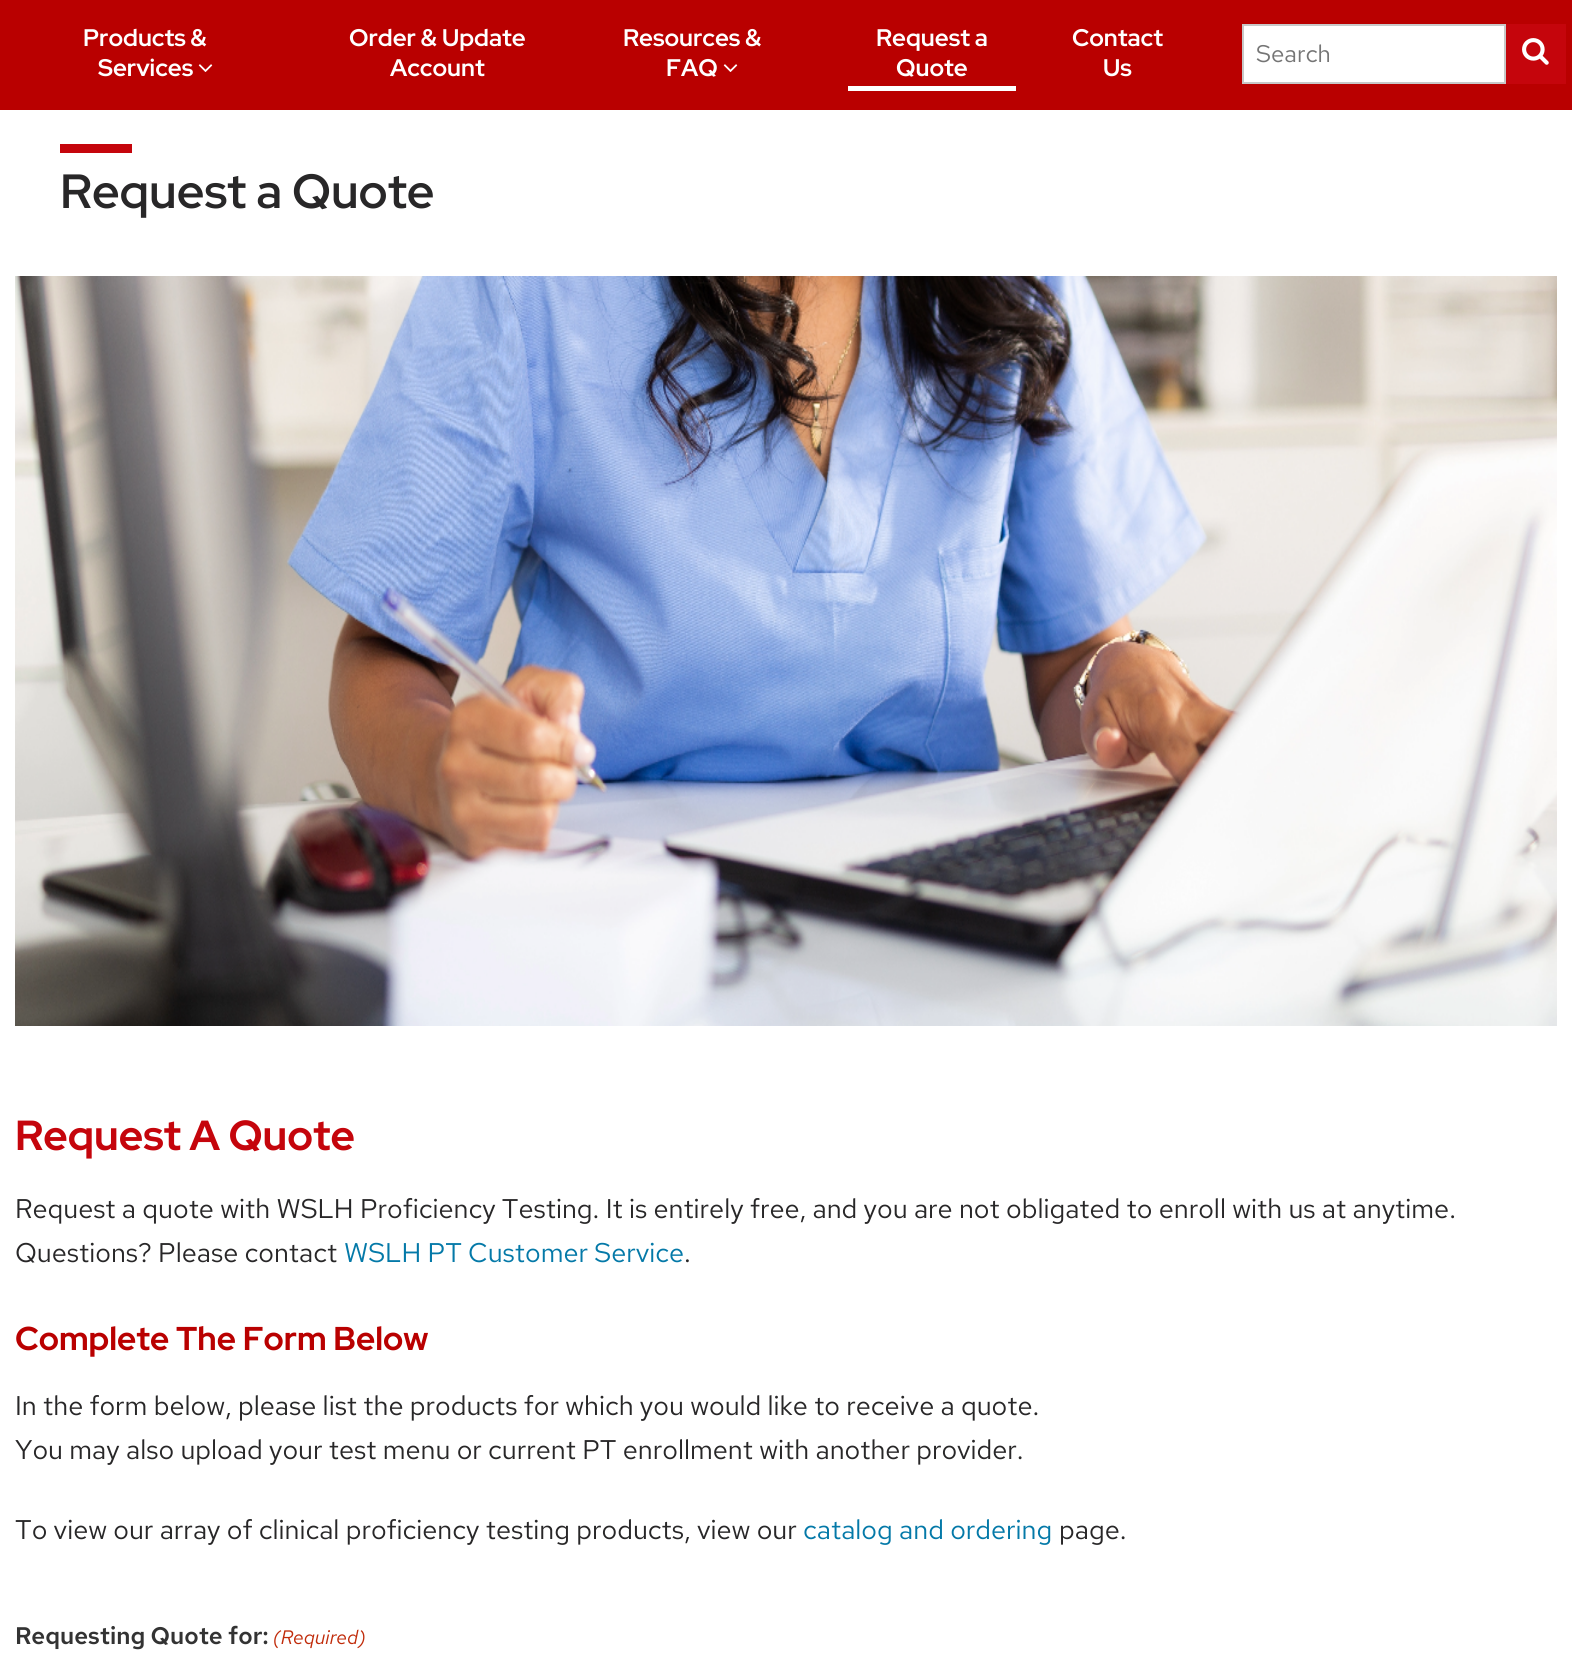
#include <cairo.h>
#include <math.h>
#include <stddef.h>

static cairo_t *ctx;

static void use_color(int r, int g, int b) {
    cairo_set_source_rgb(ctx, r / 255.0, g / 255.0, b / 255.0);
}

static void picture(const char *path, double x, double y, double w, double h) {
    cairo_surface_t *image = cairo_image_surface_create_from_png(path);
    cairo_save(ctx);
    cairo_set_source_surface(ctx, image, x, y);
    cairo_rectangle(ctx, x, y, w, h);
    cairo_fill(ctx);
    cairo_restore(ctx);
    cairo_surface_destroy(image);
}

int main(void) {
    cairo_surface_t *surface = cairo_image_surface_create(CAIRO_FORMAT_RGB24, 1572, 1660);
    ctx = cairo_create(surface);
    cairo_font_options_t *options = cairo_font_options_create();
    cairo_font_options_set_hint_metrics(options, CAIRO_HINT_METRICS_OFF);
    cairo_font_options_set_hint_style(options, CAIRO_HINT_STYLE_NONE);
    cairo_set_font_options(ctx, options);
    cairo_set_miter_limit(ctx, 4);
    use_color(255, 255, 255);
    cairo_paint(ctx);
    use_color(185, 0, 0);
    cairo_rectangle(ctx, 0, 0, 1572, 110);
    cairo_fill(ctx);
    cairo_select_font_face(ctx, "Red Hat Display SemiBold", CAIRO_FONT_SLANT_NORMAL, CAIRO_FONT_WEIGHT_NORMAL);
    cairo_set_font_size(ctx, 24);
    use_color(255, 255, 255);
    cairo_move_to(ctx, 83, 46);
    cairo_show_text(ctx, "Products &");
    cairo_move_to(ctx, 98, 76);
    cairo_show_text(ctx, "Services");
    picture("img1.png", 198, 64, 15, 8);
    cairo_move_to(ctx, 349, 46);
    cairo_show_text(ctx, "Order & Update");
    cairo_move_to(ctx, 390, 76);
    cairo_show_text(ctx, "Account");
    cairo_move_to(ctx, 623, 46);
    cairo_show_text(ctx, "Resources &");
    cairo_move_to(ctx, 666, 76);
    cairo_show_text(ctx, "FAQ");
    picture("img1.png", 723, 64, 15, 8);
    cairo_rectangle(ctx, 848, 86, 168, 5);
    cairo_fill(ctx);
    cairo_move_to(ctx, 876, 46);
    cairo_show_text(ctx, "Request a");
    cairo_move_to(ctx, 896, 76);
    cairo_show_text(ctx, "Quote");
    cairo_move_to(ctx, 1072, 46);
    cairo_show_text(ctx, "Contact");
    cairo_move_to(ctx, 1103, 76);
    cairo_show_text(ctx, "Us");
    cairo_rectangle(ctx, 1243, 25, 262, 58);
    cairo_fill_preserve(ctx);
    use_color(200, 200, 200);
    cairo_stroke(ctx);
    cairo_select_font_face(ctx, "Red Hat Text", CAIRO_FONT_SLANT_NORMAL, CAIRO_FONT_WEIGHT_NORMAL);
    use_color(117, 117, 117);
    cairo_move_to(ctx, 1256, 62);
    cairo_show_text(ctx, "Search");
    use_color(197, 5, 12);
    cairo_rectangle(ctx, 1506, 24, 60, 60);
    cairo_fill(ctx);
    picture("img2.png", 1522, 38, 27, 27);
    cairo_rectangle(ctx, 60, 144, 72, 9);
    cairo_fill(ctx);
    cairo_select_font_face(ctx, "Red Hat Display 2 SemiBold", CAIRO_FONT_SLANT_NORMAL, CAIRO_FONT_WEIGHT_NORMAL);
    cairo_set_font_size(ctx, 48);
    use_color(40, 39, 40);
    cairo_move_to(ctx, 60, 208);
    cairo_show_text(ctx, "Request a Quote");
    picture("img3.png", 15, 276, 1542, 750);
    cairo_select_font_face(ctx, "Red Hat Display", CAIRO_FONT_SLANT_NORMAL, CAIRO_FONT_WEIGHT_BOLD);
    cairo_set_font_size(ctx, 42);
    use_color(197, 5, 12);
    cairo_move_to(ctx, 15, 1150);
    cairo_show_text(ctx, "Request A Quote");
    cairo_select_font_face(ctx, "Red Hat Text", CAIRO_FONT_SLANT_NORMAL, CAIRO_FONT_WEIGHT_NORMAL);
    cairo_set_font_size(ctx, 27);
    use_color(40, 39, 40);
    cairo_move_to(ctx, 15, 1218);
    cairo_show_text(ctx, "Request a quote with WSLH Proficiency Testing. It is entirely free, and you are not obligated to enroll with us at anytime.");
    cairo_move_to(ctx, 15, 1262);
    cairo_show_text(ctx, "Questions? Please contact");
    use_color(4, 121, 168);
    cairo_move_to(ctx, 344, 1262);
    cairo_show_text(ctx, "WSLH PT Customer Service");
    use_color(40, 39, 40);
    cairo_move_to(ctx, 684, 1262);
    cairo_show_text(ctx, ".");
    cairo_select_font_face(ctx, "Red Hat Display", CAIRO_FONT_SLANT_NORMAL, CAIRO_FONT_WEIGHT_BOLD);
    cairo_set_font_size(ctx, 33);
    use_color(185, 0, 0);
    cairo_move_to(ctx, 15, 1350);
    cairo_show_text(ctx, "Complete The Form Below");
    cairo_select_font_face(ctx, "Red Hat Text", CAIRO_FONT_SLANT_NORMAL, CAIRO_FONT_WEIGHT_NORMAL);
    cairo_set_font_size(ctx, 27);
    use_color(40, 39, 40);
    cairo_move_to(ctx, 15, 1415);
    cairo_show_text(ctx, "In the form below, please list the products for which you would like to receive a quote.");
    cairo_move_to(ctx, 15, 1459);
    cairo_show_text(ctx, "You may also upload your test menu or current PT enrollment with another provider.");
    cairo_move_to(ctx, 15, 1539);
    cairo_show_text(ctx, "To view our array of clinical proficiency testing products, view our");
    use_color(4, 121, 168);
    cairo_move_to(ctx, 803, 1539);
    cairo_show_text(ctx, "catalog and ordering");
    use_color(40, 39, 40);
    cairo_move_to(ctx, 1059, 1539);
    cairo_show_text(ctx, "page.");
    cairo_select_font_face(ctx, "Red Hat Text SemiBold", CAIRO_FONT_SLANT_NORMAL, CAIRO_FONT_WEIGHT_NORMAL);
    cairo_set_font_size(ctx, 24);
    use_color(51, 51, 51);
    cairo_move_to(ctx, 15, 1644);
    cairo_show_text(ctx, "Requesting Quote for:");
    cairo_select_font_face(ctx, "Red Hat Text", CAIRO_FONT_SLANT_ITALIC, CAIRO_FONT_WEIGHT_NORMAL);
    cairo_set_font_size(ctx, 19.5);
    use_color(192, 43, 10);
    cairo_move_to(ctx, 273, 1644);
    cairo_show_text(ctx, "(Required)");
    cairo_surface_write_to_png(surface, "result.png");
    cairo_font_options_destroy(options);
    cairo_destroy(ctx);
    cairo_surface_destroy(surface);
    return 0;
}
